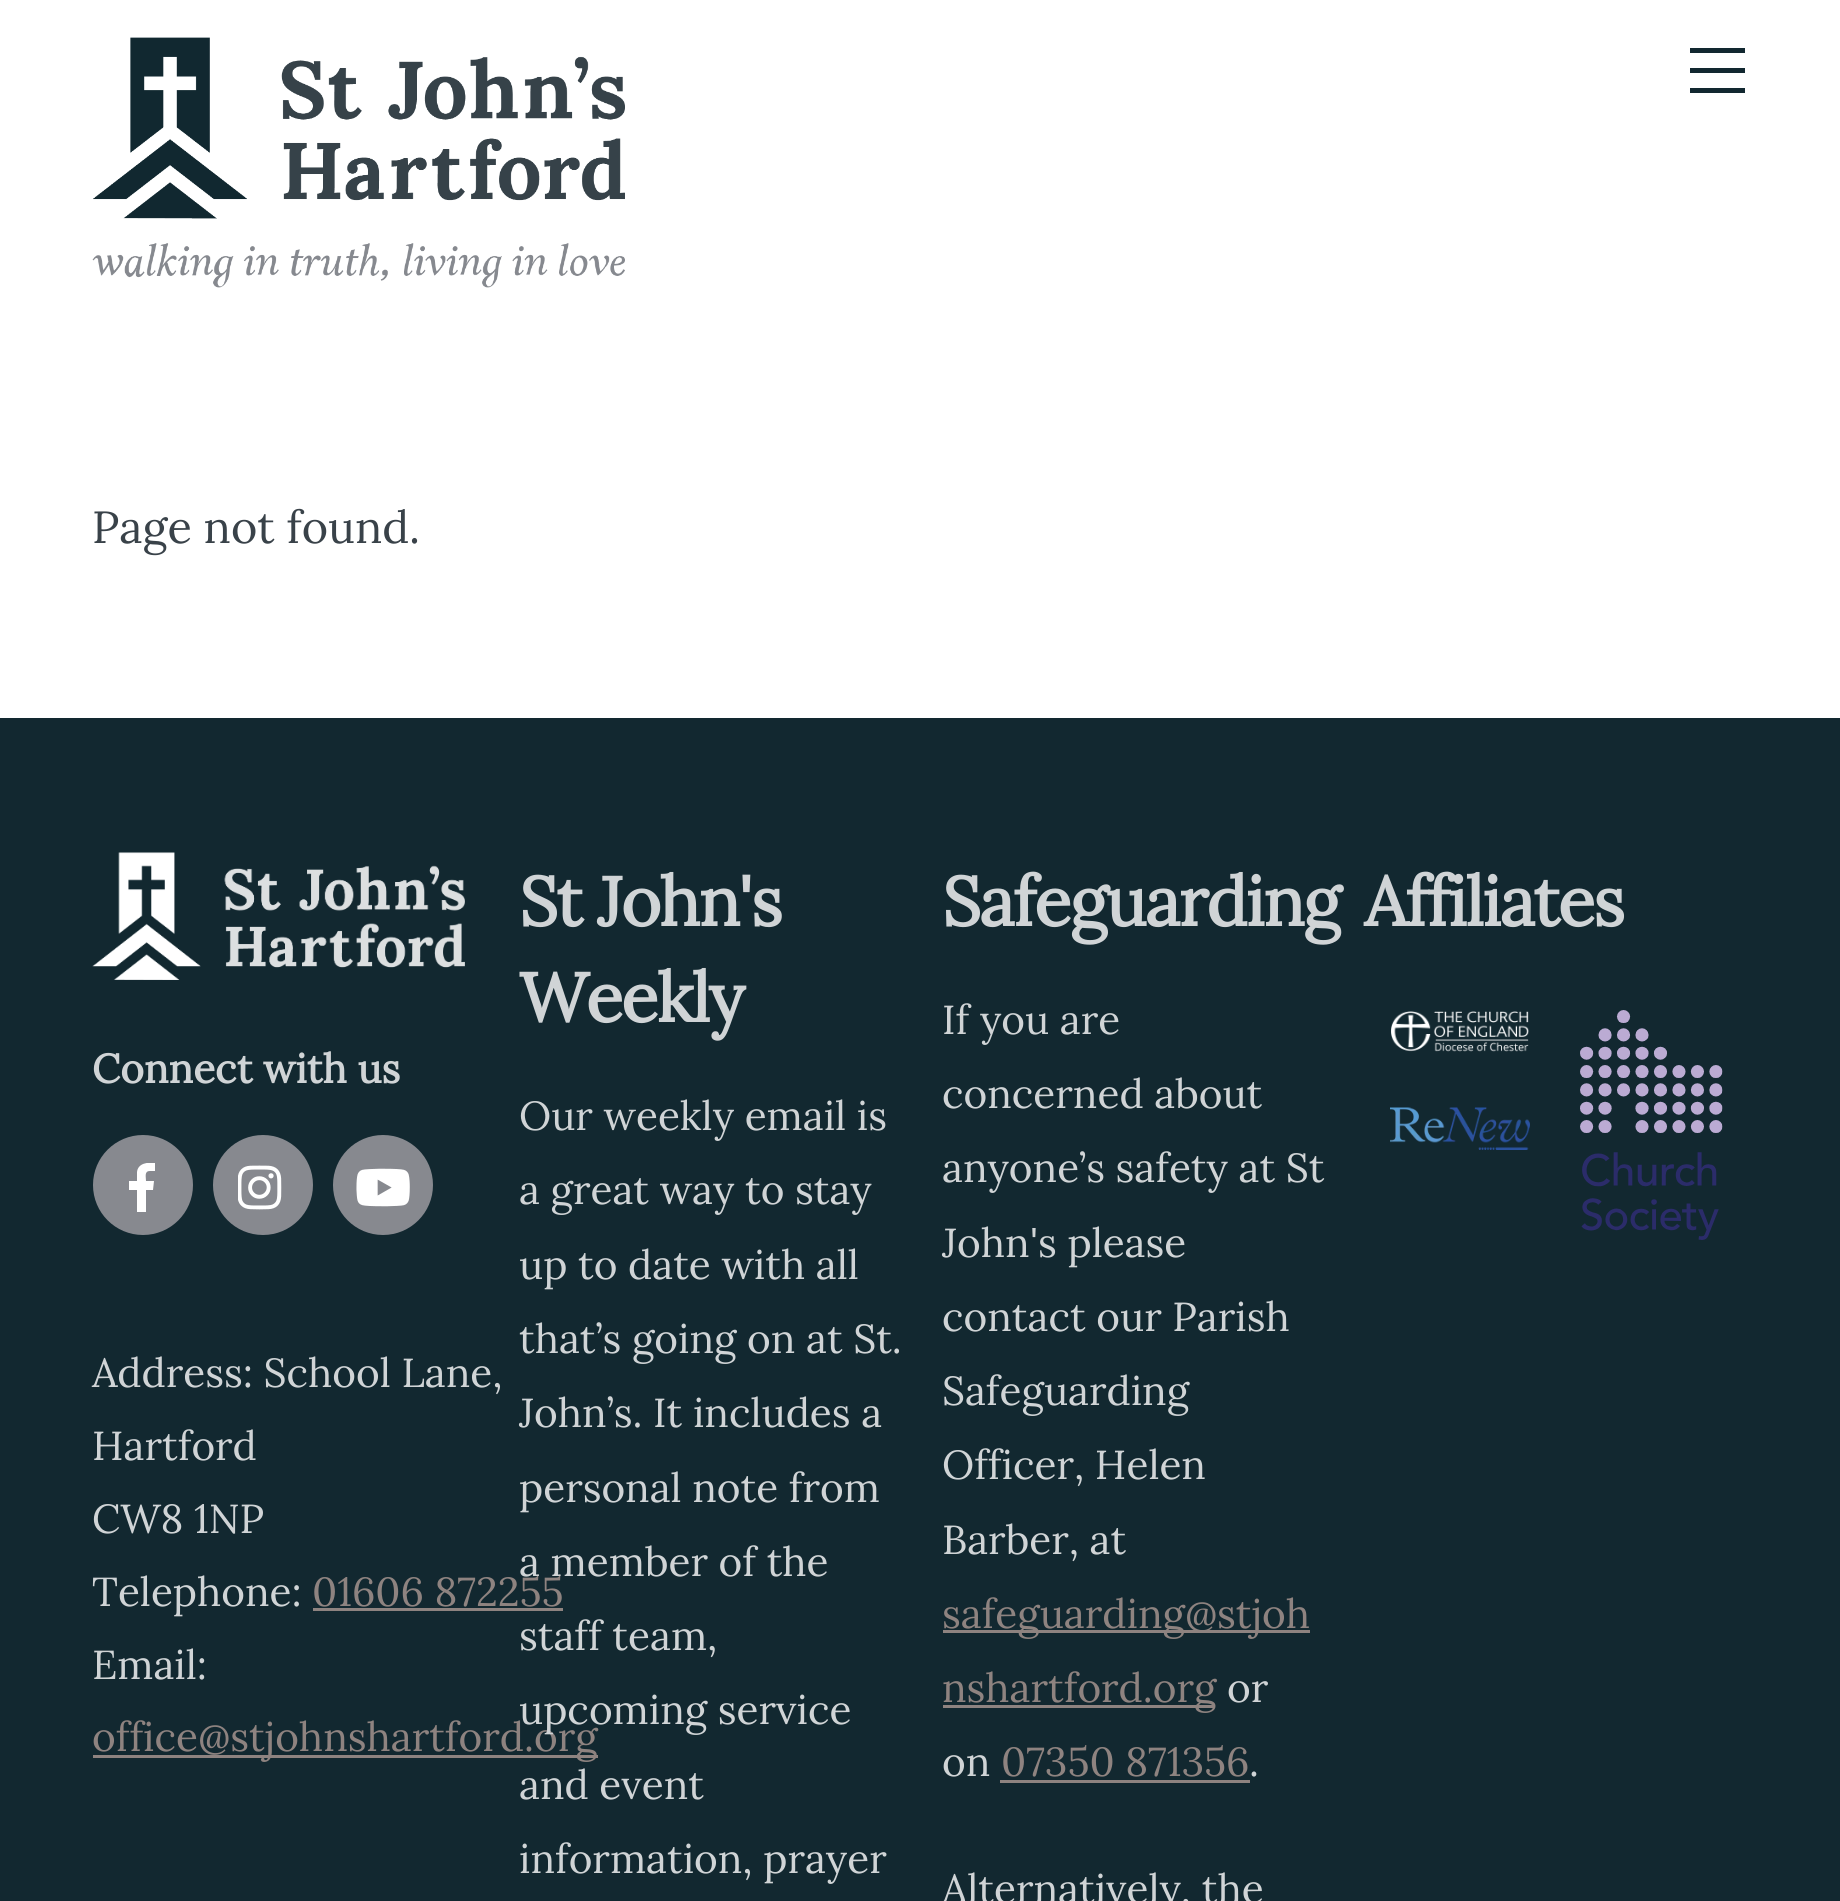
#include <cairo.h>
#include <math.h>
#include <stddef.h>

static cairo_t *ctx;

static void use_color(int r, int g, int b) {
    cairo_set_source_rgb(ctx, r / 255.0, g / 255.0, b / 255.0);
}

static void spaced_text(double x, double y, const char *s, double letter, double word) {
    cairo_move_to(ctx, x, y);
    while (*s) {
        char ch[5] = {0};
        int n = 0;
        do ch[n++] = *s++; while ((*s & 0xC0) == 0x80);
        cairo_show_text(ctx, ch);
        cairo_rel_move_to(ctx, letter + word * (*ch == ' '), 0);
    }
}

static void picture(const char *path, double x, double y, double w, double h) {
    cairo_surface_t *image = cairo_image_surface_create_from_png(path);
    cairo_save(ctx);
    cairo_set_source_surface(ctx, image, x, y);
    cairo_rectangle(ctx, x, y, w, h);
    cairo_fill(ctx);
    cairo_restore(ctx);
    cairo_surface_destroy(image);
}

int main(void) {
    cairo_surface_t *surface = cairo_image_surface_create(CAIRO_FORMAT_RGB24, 1840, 1901);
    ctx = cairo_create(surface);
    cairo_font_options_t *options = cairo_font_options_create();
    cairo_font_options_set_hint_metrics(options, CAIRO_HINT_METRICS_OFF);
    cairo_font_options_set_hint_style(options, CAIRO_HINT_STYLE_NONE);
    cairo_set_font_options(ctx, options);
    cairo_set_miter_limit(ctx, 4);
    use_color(255, 255, 255);
    cairo_paint(ctx);
    picture("img1.png", 92, 37, 533, 251);
    use_color(18, 40, 48);
    cairo_rectangle(ctx, 1690, 88, 55, 5);
    cairo_fill(ctx);
    cairo_rectangle(ctx, 1690, 48, 55, 5);
    cairo_fill(ctx);
    cairo_rectangle(ctx, 1690, 68, 55, 5);
    cairo_fill(ctx);
    cairo_select_font_face(ctx, "Lora", CAIRO_FONT_SLANT_NORMAL, CAIRO_FONT_WEIGHT_NORMAL);
    cairo_set_font_size(ctx, 45);
    use_color(57, 66, 73);
    cairo_move_to(ctx, 92, 543);
    cairo_show_text(ctx, "Page not found.");
    use_color(18, 40, 48);
    cairo_rectangle(ctx, 0, 718, 1840, 1183);
    cairo_fill(ctx);
    picture("img2.png", 92, 852, 373, 128);
    cairo_select_font_face(ctx, "Lora", CAIRO_FONT_SLANT_NORMAL, CAIRO_FONT_WEIGHT_BOLD);
    cairo_set_font_size(ctx, 40.5);
    use_color(208, 212, 214);
    cairo_move_to(ctx, 92, 1083);
    cairo_show_text(ctx, "Connect with us");
    use_color(135, 137, 143);
    cairo_new_path(ctx);
    cairo_arc(ctx, 143, 1185, 50, 0, 2 * M_PI);
    cairo_fill(ctx);
    cairo_save(ctx);
    cairo_rectangle(ctx, 118, 1163, 50, 50);
    cairo_clip(ctx);
    use_color(255, 255, 255);
    cairo_new_path(ctx);
    cairo_move_to(ctx, 150, 1171);
    cairo_curve_to(ctx, 144, 1171, 146, 1177, 146, 1181);
    cairo_line_to(ctx, 154, 1181);
    cairo_line_to(ctx, 153, 1190);
    cairo_line_to(ctx, 146, 1190);
    cairo_line_to(ctx, 146, 1212);
    cairo_line_to(ctx, 137, 1212);
    cairo_line_to(ctx, 137, 1190);
    cairo_line_to(ctx, 129, 1190);
    cairo_line_to(ctx, 129, 1181);
    cairo_line_to(ctx, 137, 1181);
    cairo_line_to(ctx, 137, 1172);
    cairo_curve_to(ctx, 138, 1163, 148, 1162, 155, 1163);
    cairo_line_to(ctx, 155, 1171);
    cairo_close_path(ctx);
    cairo_fill(ctx);
    cairo_restore(ctx);
    cairo_arc(ctx, 263, 1185, 50, 0, 2 * M_PI);
    cairo_fill(ctx);
    picture("img3.png", 238, 1165, 44, 45);
    cairo_arc(ctx, 383, 1185, 50, 0, 2 * M_PI);
    cairo_fill(ctx);
    picture("img4.png", 356, 1168, 54, 39);
    cairo_select_font_face(ctx, "Lora", CAIRO_FONT_SLANT_NORMAL, CAIRO_FONT_WEIGHT_NORMAL);
    use_color(208, 212, 214);
    cairo_move_to(ctx, 92, 1387);
    cairo_show_text(ctx, "Address: School Lane,");
    cairo_move_to(ctx, 92, 1460);
    cairo_show_text(ctx, "Hartford");
    cairo_move_to(ctx, 92, 1533);
    cairo_show_text(ctx, "CW8 1NP");
    cairo_move_to(ctx, 92, 1606);
    cairo_show_text(ctx, "Telephone:");
    use_color(142, 131, 128);
    cairo_move_to(ctx, 312, 1606);
    cairo_show_text(ctx, "01606 872255");
    cairo_rectangle(ctx, 313, 1608, 250, 3);
    cairo_fill(ctx);
    use_color(208, 212, 214);
    cairo_move_to(ctx, 92, 1679);
    cairo_show_text(ctx, "Email:");
    use_color(142, 131, 128);
    cairo_rectangle(ctx, 93, 1755, 505, 3);
    cairo_fill(ctx);
    cairo_move_to(ctx, 92, 1751);
    cairo_show_text(ctx, "office@stjohnshartford.org");
    cairo_select_font_face(ctx, "Lora", CAIRO_FONT_SLANT_NORMAL, CAIRO_FONT_WEIGHT_BOLD);
    cairo_set_font_size(ctx, 69);
    use_color(208, 212, 214);
    spaced_text(519, 926, "St John's", -2, 0);
    spaced_text(519, 1022, "Weekly", -2, 0);
    cairo_select_font_face(ctx, "Lora", CAIRO_FONT_SLANT_NORMAL, CAIRO_FONT_WEIGHT_NORMAL);
    cairo_set_font_size(ctx, 40.5);
    cairo_move_to(ctx, 519, 1130);
    cairo_show_text(ctx, "Our weekly email is");
    cairo_move_to(ctx, 519, 1204);
    cairo_show_text(ctx, "a great way to stay");
    cairo_move_to(ctx, 519, 1279);
    cairo_show_text(ctx, "up to date with all");
    cairo_move_to(ctx, 519, 1353);
    cairo_show_text(ctx, "that’s going on at St.");
    cairo_move_to(ctx, 519, 1427);
    cairo_show_text(ctx, "John’s. It includes a");
    cairo_move_to(ctx, 519, 1502);
    cairo_show_text(ctx, "personal note from");
    cairo_move_to(ctx, 519, 1576);
    cairo_show_text(ctx, "a member of the");
    cairo_move_to(ctx, 519, 1650);
    cairo_show_text(ctx, "staff team,");
    cairo_move_to(ctx, 519, 1724);
    cairo_show_text(ctx, "upcoming service");
    cairo_move_to(ctx, 519, 1799);
    cairo_show_text(ctx, "and event");
    cairo_move_to(ctx, 519, 1873);
    cairo_show_text(ctx, "information, prayer");
    cairo_select_font_face(ctx, "Lora", CAIRO_FONT_SLANT_NORMAL, CAIRO_FONT_WEIGHT_BOLD);
    cairo_set_font_size(ctx, 69);
    spaced_text(942, 926, "Safeguarding", -2, 0);
    cairo_select_font_face(ctx, "Lora", CAIRO_FONT_SLANT_NORMAL, CAIRO_FONT_WEIGHT_NORMAL);
    cairo_set_font_size(ctx, 40.5);
    cairo_move_to(ctx, 942, 1034);
    cairo_show_text(ctx, "If you are");
    cairo_move_to(ctx, 942, 1108);
    cairo_show_text(ctx, "concerned about");
    cairo_move_to(ctx, 942, 1182);
    cairo_show_text(ctx, "anyone’s safety at St");
    cairo_move_to(ctx, 942, 1257);
    cairo_show_text(ctx, "John's please");
    cairo_move_to(ctx, 942, 1331);
    cairo_show_text(ctx, "contact our Parish");
    cairo_move_to(ctx, 942, 1405);
    cairo_show_text(ctx, "Safeguarding");
    cairo_move_to(ctx, 942, 1479);
    cairo_show_text(ctx, "Officer, Helen");
    cairo_move_to(ctx, 942, 1554);
    cairo_show_text(ctx, "Barber, at");
    use_color(142, 131, 128);
    cairo_rectangle(ctx, 943, 1630, 367, 3);
    cairo_fill(ctx);
    cairo_move_to(ctx, 942, 1628);
    cairo_show_text(ctx, "safeguarding@stjoh");
    cairo_rectangle(ctx, 943, 1705, 272, 3);
    cairo_fill(ctx);
    cairo_move_to(ctx, 942, 1702);
    cairo_show_text(ctx, "nshartford.org");
    use_color(208, 212, 214);
    cairo_move_to(ctx, 1227, 1702);
    cairo_show_text(ctx, "or");
    cairo_move_to(ctx, 942, 1776);
    cairo_show_text(ctx, "on");
    use_color(142, 131, 128);
    cairo_move_to(ctx, 1001, 1776);
    cairo_show_text(ctx, "07350 871356");
    cairo_rectangle(ctx, 1000, 1780, 250, 3);
    cairo_fill(ctx);
    use_color(208, 212, 214);
    cairo_move_to(ctx, 1249, 1776);
    cairo_show_text(ctx, ".");
    cairo_move_to(ctx, 942, 1903);
    cairo_show_text(ctx, "Alternatively, the");
    cairo_select_font_face(ctx, "Lora", CAIRO_FONT_SLANT_NORMAL, CAIRO_FONT_WEIGHT_BOLD);
    cairo_set_font_size(ctx, 69);
    spaced_text(1364, 926, "Affiliates", -2, 0);
    picture("img5.png", 1391, 1011, 138, 41);
    picture("img6.png", 1580, 1010, 143, 230);
    picture("img7.png", 1390, 1107, 140, 43);
    cairo_surface_write_to_png(surface, "result.png");
    cairo_font_options_destroy(options);
    cairo_destroy(ctx);
    cairo_surface_destroy(surface);
    return 0;
}
